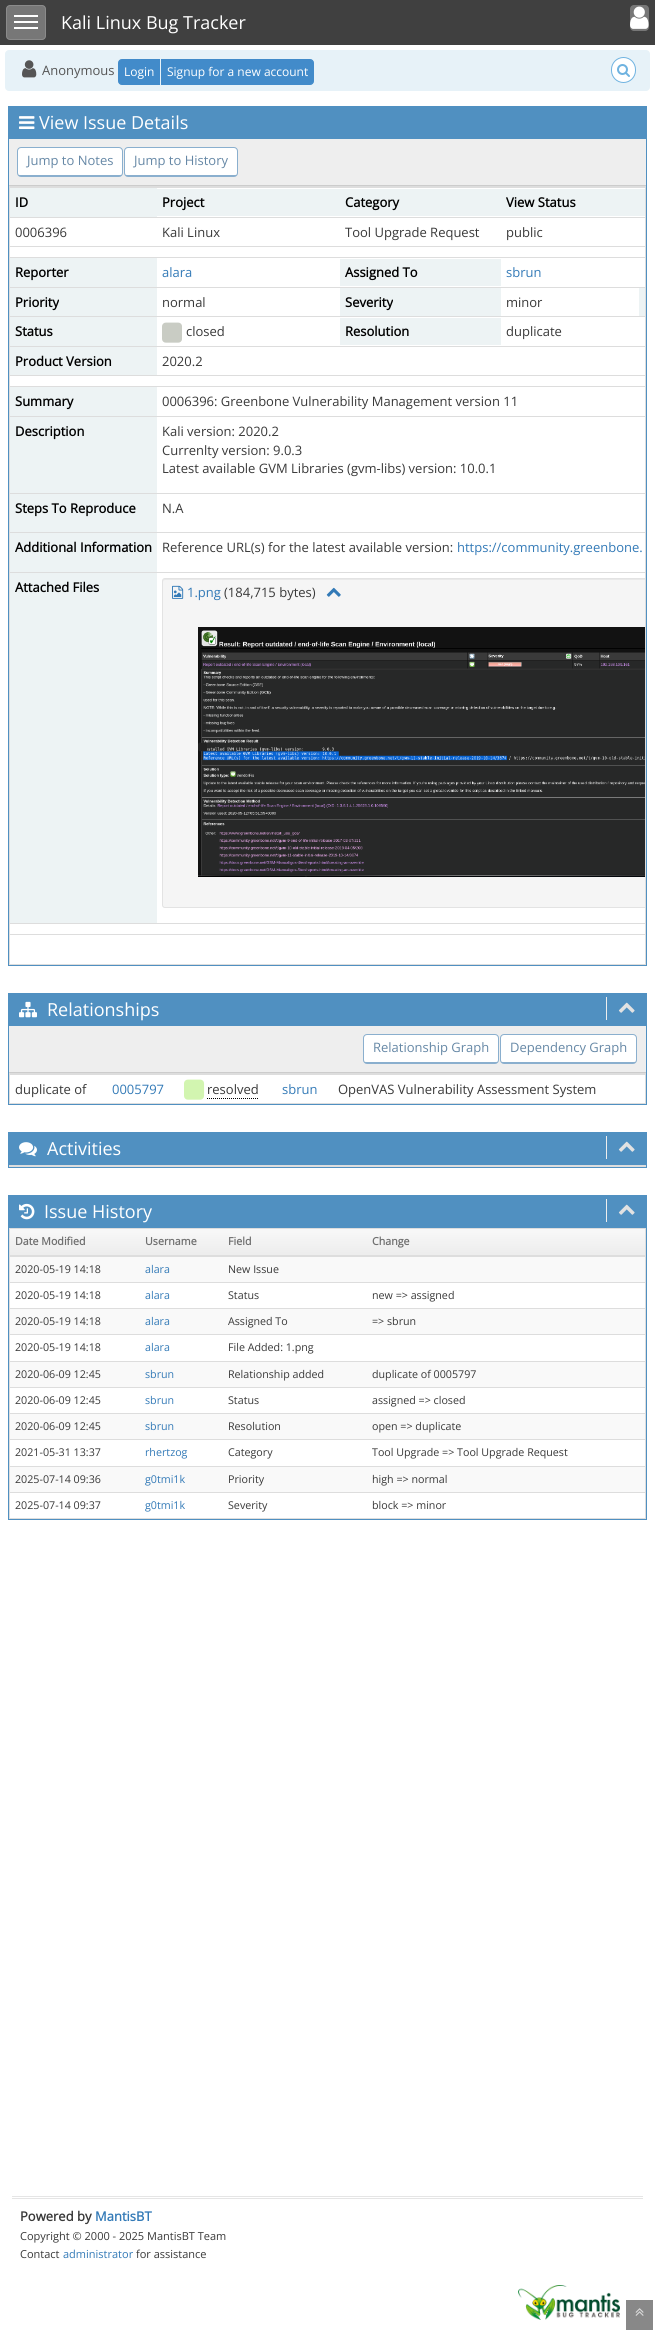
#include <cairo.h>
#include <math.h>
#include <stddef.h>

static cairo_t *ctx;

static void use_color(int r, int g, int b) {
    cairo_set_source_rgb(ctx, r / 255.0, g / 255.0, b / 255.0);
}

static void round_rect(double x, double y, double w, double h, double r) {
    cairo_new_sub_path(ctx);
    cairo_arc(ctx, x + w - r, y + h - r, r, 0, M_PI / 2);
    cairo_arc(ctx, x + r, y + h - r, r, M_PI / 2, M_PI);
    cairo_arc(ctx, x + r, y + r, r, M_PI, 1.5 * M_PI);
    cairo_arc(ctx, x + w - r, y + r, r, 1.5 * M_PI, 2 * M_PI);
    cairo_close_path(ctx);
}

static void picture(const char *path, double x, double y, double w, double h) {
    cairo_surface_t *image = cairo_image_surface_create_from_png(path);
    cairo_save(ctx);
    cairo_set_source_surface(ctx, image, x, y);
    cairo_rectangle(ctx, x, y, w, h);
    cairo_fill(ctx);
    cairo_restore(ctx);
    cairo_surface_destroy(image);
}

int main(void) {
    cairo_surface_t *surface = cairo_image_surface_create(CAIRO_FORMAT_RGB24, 655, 2332);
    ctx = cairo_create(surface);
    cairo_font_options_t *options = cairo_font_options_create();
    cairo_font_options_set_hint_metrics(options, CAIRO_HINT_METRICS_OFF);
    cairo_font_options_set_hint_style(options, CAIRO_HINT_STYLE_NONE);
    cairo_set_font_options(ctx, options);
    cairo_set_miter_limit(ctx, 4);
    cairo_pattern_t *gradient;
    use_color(255, 255, 255);
    cairo_paint(ctx);
    use_color(64, 64, 64);
    cairo_rectangle(ctx, 0, 0, 655, 45);
    cairo_fill(ctx);
    use_color(119, 119, 119);
    round_rect(6, 5, 40, 35, 4);
    cairo_fill(ctx);
    round_rect(6.5, 5.5, 39, 34, 3.5);
    cairo_set_source_rgba(ctx, 1, 1, 1, 0.15);
    cairo_set_line_width(ctx, 1);
    cairo_stroke(ctx);
    use_color(255, 255, 255);
    cairo_rectangle(ctx, 14, 15, 24, 2);
    cairo_fill(ctx);
    cairo_rectangle(ctx, 14, 21, 24, 2);
    cairo_fill(ctx);
    cairo_rectangle(ctx, 14, 27, 24, 2);
    cairo_fill(ctx);
    cairo_select_font_face(ctx, "Open Sans", CAIRO_FONT_SLANT_NORMAL, CAIRO_FONT_WEIGHT_NORMAL);
    cairo_set_font_size(ctx, 18);
    cairo_move_to(ctx, 61, 29);
    cairo_show_text(ctx, "Kali Linux Bug Tracker");
    use_color(119, 119, 119);
    round_rect(630, 5, 19, 26, 4);
    cairo_fill(ctx);
    picture("img1.png", 630, 6, 19, 23);
    use_color(231, 242, 248);
    round_rect(5, 50, 645, 41, 4);
    cairo_fill(ctx);
    picture("img2.png", 22, 60, 15, 18);
    cairo_set_font_size(ctx, 13);
    use_color(85, 85, 85);
    cairo_move_to(ctx, 42, 75);
    cairo_show_text(ctx, "Anonymous");
    use_color(66, 139, 202);
    cairo_new_path(ctx);
    cairo_move_to(ctx, 122, 59.5);
    cairo_line_to(ctx, 159.5, 59.5);
    cairo_line_to(ctx, 159.5, 84.5);
    cairo_line_to(ctx, 122, 84.5);
    cairo_curve_to(ctx, 120, 84.5, 118.5, 83, 118.5, 81);
    cairo_line_to(ctx, 118.5, 63);
    cairo_curve_to(ctx, 118.5, 61, 120, 59.5, 122, 59.5);
    cairo_close_path(ctx);
    cairo_fill_preserve(ctx);
    cairo_stroke(ctx);
    cairo_set_font_size(ctx, 12);
    use_color(255, 255, 255);
    cairo_move_to(ctx, 124, 76);
    cairo_show_text(ctx, "Login");
    use_color(66, 139, 202);
    cairo_new_path(ctx);
    cairo_move_to(ctx, 161.5, 59.5);
    cairo_line_to(ctx, 310, 59.5);
    cairo_curve_to(ctx, 312, 59.5, 313.5, 61, 313.5, 63);
    cairo_line_to(ctx, 313.5, 81);
    cairo_curve_to(ctx, 313.5, 83, 312, 84.5, 310, 84.5);
    cairo_line_to(ctx, 161.5, 84.5);
    cairo_close_path(ctx);
    cairo_fill_preserve(ctx);
    cairo_stroke(ctx);
    use_color(255, 255, 255);
    cairo_move_to(ctx, 167, 76);
    cairo_show_text(ctx, "Signup for a new account");
    round_rect(611.5, 57.5, 24, 25, 12);
    cairo_fill_preserve(ctx);
    use_color(111, 179, 224);
    cairo_stroke(ctx);
    picture("img3.png", 617, 64, 13, 13);
    cairo_rectangle(ctx, 8.5, 106.5, 638, 859);
    use_color(80, 144, 193);
    cairo_stroke(ctx);
    cairo_rectangle(ctx, 9, 107, 637, 32);
    cairo_fill(ctx);
    picture("img4.png", 19, 116, 16, 13);
    cairo_set_font_size(ctx, 18);
    use_color(255, 255, 255);
    cairo_move_to(ctx, 39, 129);
    cairo_show_text(ctx, "View Issue Details");
    use_color(238, 238, 238);
    cairo_rectangle(ctx, 9, 139, 637, 46);
    cairo_fill(ctx);
    use_color(204, 204, 204);
    cairo_rectangle(ctx, 9, 185, 637, 1);
    cairo_fill(ctx);
    use_color(255, 255, 255);
    cairo_new_path(ctx);
    cairo_move_to(ctx, 21, 148);
    cairo_line_to(ctx, 119, 148);
    cairo_curve_to(ctx, 121, 148, 122, 149, 122, 151);
    cairo_line_to(ctx, 122, 173);
    cairo_curve_to(ctx, 122, 174, 121, 175, 119, 175);
    cairo_line_to(ctx, 21, 175);
    cairo_curve_to(ctx, 19, 175, 18, 174, 18, 173);
    cairo_line_to(ctx, 18, 151);
    cairo_curve_to(ctx, 18, 149, 19, 148, 21, 148);
    cairo_close_path(ctx);
    cairo_fill(ctx);
    round_rect(17.5, 147.5, 105, 29, 3.5);
    use_color(138, 175, 206);
    cairo_stroke(ctx);
    cairo_rectangle(ctx, 19, 175, 102, 1);
    cairo_fill(ctx);
    cairo_set_font_size(ctx, 13);
    use_color(102, 136, 166);
    cairo_move_to(ctx, 27, 165);
    cairo_show_text(ctx, "Jump to Notes");
    use_color(255, 255, 255);
    cairo_new_path(ctx);
    cairo_move_to(ctx, 128, 148);
    cairo_line_to(ctx, 234, 148);
    cairo_curve_to(ctx, 236, 148, 237, 149, 237, 151);
    cairo_line_to(ctx, 237, 173);
    cairo_curve_to(ctx, 237, 174, 236, 175, 234, 175);
    cairo_line_to(ctx, 128, 175);
    cairo_curve_to(ctx, 126, 175, 125, 174, 125, 173);
    cairo_line_to(ctx, 125, 151);
    cairo_curve_to(ctx, 125, 149, 126, 148, 128, 148);
    cairo_close_path(ctx);
    cairo_fill(ctx);
    round_rect(124.5, 147.5, 113, 29, 3.5);
    use_color(138, 175, 206);
    cairo_stroke(ctx);
    cairo_rectangle(ctx, 126, 175, 110, 1);
    cairo_fill(ctx);
    use_color(102, 136, 166);
    cairo_move_to(ctx, 134, 165);
    cairo_show_text(ctx, "Jump to History");
    cairo_rectangle(ctx, 9.5, 186.5, 636, 778);
    use_color(221, 221, 221);
    cairo_stroke(ctx);
    cairo_rectangle(ctx, 10, 187, 635, 1);
    cairo_fill(ctx);
    use_color(237, 243, 244);
    cairo_rectangle(ctx, 10, 188, 147, 29);
    cairo_fill(ctx);
    cairo_select_font_face(ctx, "Open Sans", CAIRO_FONT_SLANT_NORMAL, CAIRO_FONT_WEIGHT_BOLD);
    use_color(0, 0, 0);
    cairo_move_to(ctx, 15, 207);
    cairo_show_text(ctx, "ID");
    use_color(237, 243, 244);
    cairo_rectangle(ctx, 157, 189, 488, 27);
    cairo_fill(ctx);
    use_color(0, 0, 0);
    cairo_move_to(ctx, 162, 207);
    cairo_show_text(ctx, "Project");
    cairo_move_to(ctx, 345, 207);
    cairo_show_text(ctx, "Category");
    cairo_move_to(ctx, 506, 207);
    cairo_show_text(ctx, "View Status");
    use_color(221, 221, 221);
    cairo_rectangle(ctx, 10, 217, 635, 1);
    cairo_fill(ctx);
    cairo_select_font_face(ctx, "Open Sans", CAIRO_FONT_SLANT_NORMAL, CAIRO_FONT_WEIGHT_NORMAL);
    use_color(57, 57, 57);
    cairo_move_to(ctx, 15, 237);
    cairo_show_text(ctx, "0006396");
    cairo_move_to(ctx, 162, 237);
    cairo_show_text(ctx, "Kali Linux");
    cairo_move_to(ctx, 345, 237);
    cairo_show_text(ctx, "Tool Upgrade Request");
    cairo_move_to(ctx, 506, 237);
    cairo_show_text(ctx, "public");
    use_color(221, 221, 221);
    cairo_rectangle(ctx, 10, 246, 635, 1);
    cairo_fill(ctx);
    cairo_rectangle(ctx, 10, 257, 635, 1);
    cairo_fill(ctx);
    use_color(237, 243, 244);
    cairo_rectangle(ctx, 10, 258, 147, 29);
    cairo_fill(ctx);
    cairo_select_font_face(ctx, "Open Sans", CAIRO_FONT_SLANT_NORMAL, CAIRO_FONT_WEIGHT_BOLD);
    use_color(0, 0, 0);
    cairo_move_to(ctx, 15, 277);
    cairo_show_text(ctx, "Reporter");
    cairo_select_font_face(ctx, "Open Sans", CAIRO_FONT_SLANT_NORMAL, CAIRO_FONT_WEIGHT_NORMAL);
    use_color(51, 122, 183);
    cairo_move_to(ctx, 162, 277);
    cairo_show_text(ctx, "alara");
    use_color(237, 243, 244);
    cairo_rectangle(ctx, 340, 259, 161, 27);
    cairo_fill(ctx);
    cairo_select_font_face(ctx, "Open Sans", CAIRO_FONT_SLANT_NORMAL, CAIRO_FONT_WEIGHT_BOLD);
    use_color(0, 0, 0);
    cairo_move_to(ctx, 345, 277);
    cairo_show_text(ctx, "Assigned To");
    cairo_select_font_face(ctx, "Open Sans", CAIRO_FONT_SLANT_NORMAL, CAIRO_FONT_WEIGHT_NORMAL);
    use_color(51, 122, 183);
    cairo_move_to(ctx, 506, 277);
    cairo_show_text(ctx, "sbrun");
    use_color(237, 243, 244);
    cairo_rectangle(ctx, 639, 288, 6, 28);
    cairo_fill(ctx);
    use_color(221, 221, 221);
    cairo_rectangle(ctx, 10, 287, 635, 1);
    cairo_fill(ctx);
    use_color(237, 243, 244);
    cairo_rectangle(ctx, 10, 288, 147, 28);
    cairo_fill(ctx);
    cairo_select_font_face(ctx, "Open Sans", CAIRO_FONT_SLANT_NORMAL, CAIRO_FONT_WEIGHT_BOLD);
    use_color(0, 0, 0);
    cairo_move_to(ctx, 15, 307);
    cairo_show_text(ctx, "Priority");
    cairo_select_font_face(ctx, "Open Sans", CAIRO_FONT_SLANT_NORMAL, CAIRO_FONT_WEIGHT_NORMAL);
    use_color(57, 57, 57);
    cairo_move_to(ctx, 162, 307);
    cairo_show_text(ctx, "normal");
    use_color(237, 243, 244);
    cairo_rectangle(ctx, 340, 288, 161, 28);
    cairo_fill(ctx);
    cairo_select_font_face(ctx, "Open Sans", CAIRO_FONT_SLANT_NORMAL, CAIRO_FONT_WEIGHT_BOLD);
    use_color(0, 0, 0);
    cairo_move_to(ctx, 345, 307);
    cairo_show_text(ctx, "Severity");
    cairo_select_font_face(ctx, "Open Sans", CAIRO_FONT_SLANT_NORMAL, CAIRO_FONT_WEIGHT_NORMAL);
    use_color(57, 57, 57);
    cairo_move_to(ctx, 506, 307);
    cairo_show_text(ctx, "minor");
    use_color(221, 221, 221);
    cairo_rectangle(ctx, 10, 316, 635, 1);
    cairo_fill(ctx);
    use_color(237, 243, 244);
    cairo_rectangle(ctx, 10, 317, 147, 29);
    cairo_fill(ctx);
    cairo_select_font_face(ctx, "Open Sans", CAIRO_FONT_SLANT_NORMAL, CAIRO_FONT_WEIGHT_BOLD);
    use_color(0, 0, 0);
    cairo_move_to(ctx, 15, 336);
    cairo_show_text(ctx, "Status");
    picture("img5.png", 162, 322, 20, 21);
    cairo_select_font_face(ctx, "Open Sans", CAIRO_FONT_SLANT_NORMAL, CAIRO_FONT_WEIGHT_NORMAL);
    use_color(57, 57, 57);
    cairo_move_to(ctx, 186, 336);
    cairo_show_text(ctx, "closed");
    use_color(237, 243, 244);
    cairo_rectangle(ctx, 340, 318, 161, 27);
    cairo_fill(ctx);
    cairo_select_font_face(ctx, "Open Sans", CAIRO_FONT_SLANT_NORMAL, CAIRO_FONT_WEIGHT_BOLD);
    use_color(0, 0, 0);
    cairo_move_to(ctx, 345, 336);
    cairo_show_text(ctx, "Resolution");
    cairo_select_font_face(ctx, "Open Sans", CAIRO_FONT_SLANT_NORMAL, CAIRO_FONT_WEIGHT_NORMAL);
    use_color(57, 57, 57);
    cairo_move_to(ctx, 506, 336);
    cairo_show_text(ctx, "duplicate");
    use_color(221, 221, 221);
    cairo_rectangle(ctx, 10, 346, 635, 1);
    cairo_fill(ctx);
    use_color(237, 243, 244);
    cairo_rectangle(ctx, 10, 347, 147, 28);
    cairo_fill(ctx);
    cairo_select_font_face(ctx, "Open Sans", CAIRO_FONT_SLANT_NORMAL, CAIRO_FONT_WEIGHT_BOLD);
    use_color(0, 0, 0);
    cairo_move_to(ctx, 15, 366);
    cairo_show_text(ctx, "Product Version");
    cairo_select_font_face(ctx, "Open Sans", CAIRO_FONT_SLANT_NORMAL, CAIRO_FONT_WEIGHT_NORMAL);
    use_color(57, 57, 57);
    cairo_move_to(ctx, 162, 366);
    cairo_show_text(ctx, "2020.2");
    use_color(221, 221, 221);
    cairo_rectangle(ctx, 10, 375, 635, 1);
    cairo_fill(ctx);
    use_color(237, 243, 244);
    cairo_rectangle(ctx, 10, 387, 147, 29);
    cairo_fill(ctx);
    cairo_select_font_face(ctx, "Open Sans", CAIRO_FONT_SLANT_NORMAL, CAIRO_FONT_WEIGHT_BOLD);
    use_color(0, 0, 0);
    cairo_move_to(ctx, 15, 406);
    cairo_show_text(ctx, "Summary");
    use_color(221, 221, 221);
    cairo_rectangle(ctx, 10, 386, 635, 1);
    cairo_fill(ctx);
    cairo_select_font_face(ctx, "Open Sans", CAIRO_FONT_SLANT_NORMAL, CAIRO_FONT_WEIGHT_NORMAL);
    use_color(57, 57, 57);
    cairo_move_to(ctx, 162, 406);
    cairo_show_text(ctx, "0006396: Greenbone Vulnerability Management version 11");
    use_color(237, 243, 244);
    cairo_rectangle(ctx, 10, 417, 147, 76);
    cairo_fill(ctx);
    cairo_select_font_face(ctx, "Open Sans", CAIRO_FONT_SLANT_NORMAL, CAIRO_FONT_WEIGHT_BOLD);
    use_color(0, 0, 0);
    cairo_move_to(ctx, 15, 436);
    cairo_show_text(ctx, "Description");
    use_color(221, 221, 221);
    cairo_rectangle(ctx, 10, 416, 635, 1);
    cairo_fill(ctx);
    cairo_select_font_face(ctx, "Open Sans", CAIRO_FONT_SLANT_NORMAL, CAIRO_FONT_WEIGHT_NORMAL);
    use_color(57, 57, 57);
    cairo_move_to(ctx, 162, 436);
    cairo_show_text(ctx, "Kali version: 2020.2");
    cairo_move_to(ctx, 162, 455);
    cairo_show_text(ctx, "Currenlty version: 9.0.3");
    cairo_move_to(ctx, 162, 473);
    cairo_show_text(ctx, "Latest available GVM Libraries (gvm-libs) version: 10.0.1");
    use_color(237, 243, 244);
    cairo_rectangle(ctx, 10, 494, 147, 38);
    cairo_fill(ctx);
    cairo_select_font_face(ctx, "Open Sans", CAIRO_FONT_SLANT_NORMAL, CAIRO_FONT_WEIGHT_BOLD);
    use_color(0, 0, 0);
    cairo_move_to(ctx, 15, 513);
    cairo_show_text(ctx, "Steps To Reproduce");
    use_color(221, 221, 221);
    cairo_rectangle(ctx, 10, 493, 635, 1);
    cairo_fill(ctx);
    cairo_select_font_face(ctx, "Open Sans", CAIRO_FONT_SLANT_NORMAL, CAIRO_FONT_WEIGHT_NORMAL);
    use_color(57, 57, 57);
    cairo_move_to(ctx, 162, 513);
    cairo_show_text(ctx, "N.A");
    use_color(237, 243, 244);
    cairo_rectangle(ctx, 10, 533, 147, 39);
    cairo_fill(ctx);
    cairo_select_font_face(ctx, "Open Sans", CAIRO_FONT_SLANT_NORMAL, CAIRO_FONT_WEIGHT_BOLD);
    use_color(0, 0, 0);
    cairo_move_to(ctx, 15, 552);
    cairo_show_text(ctx, "Additional Information");
    use_color(221, 221, 221);
    cairo_rectangle(ctx, 10, 532, 635, 1);
    cairo_fill(ctx);
    cairo_select_font_face(ctx, "Open Sans", CAIRO_FONT_SLANT_NORMAL, CAIRO_FONT_WEIGHT_NORMAL);
    use_color(57, 57, 57);
    cairo_move_to(ctx, 162, 552);
    cairo_show_text(ctx, "Reference URL(s) for the latest available version:");
    use_color(51, 122, 183);
    cairo_move_to(ctx, 457, 552);
    cairo_show_text(ctx, "https://community.greenbone.");
    use_color(237, 243, 244);
    cairo_rectangle(ctx, 10, 573, 147, 350);
    cairo_fill(ctx);
    cairo_select_font_face(ctx, "Open Sans", CAIRO_FONT_SLANT_NORMAL, CAIRO_FONT_WEIGHT_BOLD);
    use_color(0, 0, 0);
    cairo_move_to(ctx, 15, 592);
    cairo_show_text(ctx, "Attached Files");
    use_color(221, 221, 221);
    cairo_rectangle(ctx, 10, 572, 635, 1);
    cairo_fill(ctx);
    use_color(245, 245, 245);
    cairo_new_path(ctx);
    cairo_move_to(ctx, 165, 578);
    cairo_line_to(ctx, 645, 578);
    cairo_line_to(ctx, 645, 908);
    cairo_line_to(ctx, 165, 908);
    cairo_curve_to(ctx, 163.5, 908, 162, 906.5, 162, 905);
    cairo_line_to(ctx, 162, 581);
    cairo_curve_to(ctx, 162, 579.5, 163.5, 578, 165, 578);
    cairo_close_path(ctx);
    cairo_fill(ctx);
    cairo_save(ctx);
    cairo_rectangle(ctx, 10, 187, 635, 777);
    cairo_clip(ctx);
    use_color(233, 233, 233);
    cairo_new_path(ctx);
    cairo_move_to(ctx, 165, 580);
    cairo_line_to(ctx, 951, 580);
    cairo_curve_to(ctx, 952, 580, 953, 581, 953, 582);
    cairo_curve_to(ctx, 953, 581, 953, 579, 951, 579);
    cairo_line_to(ctx, 165, 579);
    cairo_curve_to(ctx, 163, 579, 163, 581, 163, 582);
    cairo_curve_to(ctx, 163, 581, 164, 580, 165, 580);
    cairo_close_path(ctx);
    cairo_fill(ctx);
    round_rect(162.5, 578.5, 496, 329, 2.5);
    use_color(227, 227, 227);
    cairo_stroke(ctx);
    cairo_restore(ctx);
    picture("img6.png", 172, 585, 12, 14);
    cairo_select_font_face(ctx, "Open Sans", CAIRO_FONT_SLANT_NORMAL, CAIRO_FONT_WEIGHT_NORMAL);
    use_color(51, 122, 183);
    cairo_move_to(ctx, 187, 597);
    cairo_show_text(ctx, "1.png");
    use_color(57, 57, 57);
    cairo_move_to(ctx, 224, 597);
    cairo_show_text(ctx, "(184,715 bytes)");
    picture("img7.png", 326, 587, 15, 10);
    picture("img8.png", 198, 627, 447, 250);
    use_color(221, 221, 221);
    cairo_rectangle(ctx, 10, 923, 635, 1);
    cairo_fill(ctx);
    cairo_rectangle(ctx, 10, 934, 635, 1);
    cairo_fill(ctx);
    cairo_rectangle(ctx, 8.5, 993.5, 638, 111);
    use_color(80, 144, 193);
    cairo_stroke(ctx);
    cairo_rectangle(ctx, 9, 994, 637, 32);
    cairo_fill(ctx);
    picture("img9.png", 19, 1001, 18, 17);
    cairo_set_font_size(ctx, 18);
    use_color(255, 255, 255);
    cairo_move_to(ctx, 47, 1016);
    cairo_show_text(ctx, "Relationships");
    use_color(238, 238, 238);
    cairo_rectangle(ctx, 606, 997, 1, 23);
    cairo_fill(ctx);
    picture("img10.png", 618, 1002, 17, 11);
    cairo_rectangle(ctx, 9, 1026, 637, 46);
    cairo_fill(ctx);
    use_color(204, 204, 204);
    cairo_rectangle(ctx, 9, 1072, 637, 1);
    cairo_fill(ctx);
    use_color(255, 255, 255);
    cairo_new_path(ctx);
    cairo_move_to(ctx, 367, 1035);
    cairo_line_to(ctx, 495, 1035);
    cairo_curve_to(ctx, 497, 1035, 498, 1036, 498, 1038);
    cairo_line_to(ctx, 498, 1060);
    cairo_curve_to(ctx, 498, 1061, 497, 1062, 495, 1062);
    cairo_line_to(ctx, 367, 1062);
    cairo_curve_to(ctx, 365, 1062, 364, 1061, 364, 1060);
    cairo_line_to(ctx, 364, 1038);
    cairo_curve_to(ctx, 364, 1036, 365, 1035, 367, 1035);
    cairo_close_path(ctx);
    cairo_fill(ctx);
    round_rect(363.5, 1034.5, 135, 29, 3.5);
    use_color(138, 175, 206);
    cairo_stroke(ctx);
    cairo_rectangle(ctx, 365, 1062, 132, 1);
    cairo_fill(ctx);
    cairo_set_font_size(ctx, 13);
    use_color(102, 136, 166);
    cairo_move_to(ctx, 373, 1052);
    cairo_show_text(ctx, "Relationship Graph");
    use_color(255, 255, 255);
    cairo_new_path(ctx);
    cairo_move_to(ctx, 504, 1035);
    cairo_line_to(ctx, 633, 1035);
    cairo_curve_to(ctx, 635, 1035, 636, 1036, 636, 1038);
    cairo_line_to(ctx, 636, 1060);
    cairo_curve_to(ctx, 636, 1061, 635, 1062, 633, 1062);
    cairo_line_to(ctx, 504, 1062);
    cairo_curve_to(ctx, 502, 1062, 501, 1061, 501, 1060);
    cairo_line_to(ctx, 501, 1038);
    cairo_curve_to(ctx, 501, 1036, 502, 1035, 504, 1035);
    cairo_close_path(ctx);
    cairo_fill(ctx);
    round_rect(500.5, 1034.5, 136, 29, 3.5);
    use_color(138, 175, 206);
    cairo_stroke(ctx);
    cairo_rectangle(ctx, 502, 1062, 133, 1);
    cairo_fill(ctx);
    use_color(102, 136, 166);
    cairo_move_to(ctx, 510, 1052);
    cairo_show_text(ctx, "Dependency Graph");
    cairo_rectangle(ctx, 9.5, 1073.5, 636, 30);
    use_color(221, 221, 221);
    cairo_stroke(ctx);
    use_color(57, 57, 57);
    cairo_move_to(ctx, 15, 1094);
    cairo_show_text(ctx, "duplicate of");
    use_color(51, 122, 183);
    cairo_move_to(ctx, 112, 1094);
    cairo_show_text(ctx, "0005797");
    picture("img11.png", 184, 1079, 21, 21);
    use_color(57, 57, 57);
    cairo_move_to(ctx, 207, 1094);
    cairo_show_text(ctx, "resolved");
    cairo_new_path(ctx);
    cairo_move_to(ctx, 207, 1098.5);
    cairo_line_to(ctx, 259, 1098.5);
    use_color(0, 0, 0);
    cairo_set_dash(ctx, (double[]){1, 1}, 2, 0);
    cairo_stroke(ctx);
    use_color(51, 122, 183);
    cairo_move_to(ctx, 282, 1094);
    cairo_show_text(ctx, "sbrun");
    use_color(221, 221, 221);
    cairo_rectangle(ctx, 10, 1074, 635, 1);
    cairo_fill(ctx);
    use_color(57, 57, 57);
    cairo_move_to(ctx, 338, 1094);
    cairo_show_text(ctx, "OpenVAS Vulnerability Assessment System");
    cairo_rectangle(ctx, 8.5, 1132.5, 638, 35);
    use_color(80, 144, 193);
    cairo_set_dash(ctx, NULL, 0, 0);
    cairo_stroke(ctx);
    cairo_rectangle(ctx, 9, 1133, 637, 32);
    cairo_fill(ctx);
    picture("img12.png", 19, 1142, 18, 15);
    cairo_set_font_size(ctx, 18);
    use_color(255, 255, 255);
    cairo_move_to(ctx, 47, 1155);
    cairo_show_text(ctx, "Activities");
    use_color(238, 238, 238);
    cairo_rectangle(ctx, 606, 1136, 1, 23);
    cairo_fill(ctx);
    picture("img10.png", 618, 1141, 17, 11);
    use_color(221, 221, 221);
    cairo_rectangle(ctx, 9, 1165, 637, 2);
    cairo_fill(ctx);
    cairo_rectangle(ctx, 8.5, 1195.5, 638, 324);
    use_color(80, 144, 193);
    cairo_stroke(ctx);
    cairo_rectangle(ctx, 9, 1196, 637, 32);
    cairo_fill(ctx);
    picture("img13.png", 19, 1203, 16, 17);
    use_color(255, 255, 255);
    cairo_move_to(ctx, 44, 1218);
    cairo_show_text(ctx, "Issue History");
    use_color(238, 238, 238);
    cairo_rectangle(ctx, 606, 1199, 1, 23);
    cairo_fill(ctx);
    picture("img10.png", 618, 1204, 17, 11);
    cairo_rectangle(ctx, 9.5, 1228.5, 636, 290);
    use_color(221, 221, 221);
    cairo_stroke(ctx);
    gradient = cairo_pattern_create_linear(328, 1229, 328, 1256);
    cairo_pattern_add_color_stop_rgba(gradient, 0, 0.973, 0.973, 0.973, 1);
    cairo_pattern_add_color_stop_rgba(gradient, 1, 0.925, 0.925, 0.925, 1);
    cairo_set_source(ctx, gradient);
    cairo_pattern_destroy(gradient);
    cairo_rectangle(ctx, 10, 1229, 635, 26);
    cairo_fill(ctx);
    cairo_select_font_face(ctx, "Open Sans", CAIRO_FONT_SLANT_NORMAL, CAIRO_FONT_WEIGHT_BOLD);
    cairo_set_font_size(ctx, 10.7);
    use_color(112, 112, 112);
    cairo_move_to(ctx, 15, 1245);
    cairo_show_text(ctx, "Date Modified");
    cairo_move_to(ctx, 145, 1245);
    cairo_show_text(ctx, "Username");
    cairo_move_to(ctx, 228, 1245);
    cairo_show_text(ctx, "Field");
    use_color(221, 221, 221);
    cairo_rectangle(ctx, 10, 1255, 635, 2);
    cairo_fill(ctx);
    use_color(112, 112, 112);
    cairo_move_to(ctx, 372, 1245);
    cairo_show_text(ctx, "Change");
    use_color(249, 249, 249);
    cairo_rectangle(ctx, 10, 1257, 635, 25);
    cairo_fill(ctx);
    cairo_select_font_face(ctx, "Open Sans", CAIRO_FONT_SLANT_NORMAL, CAIRO_FONT_WEIGHT_NORMAL);
    use_color(57, 57, 57);
    cairo_move_to(ctx, 15, 1273);
    cairo_show_text(ctx, "2020-05-19 14:18");
    use_color(51, 122, 183);
    cairo_move_to(ctx, 145, 1273);
    cairo_show_text(ctx, "alara");
    use_color(57, 57, 57);
    cairo_move_to(ctx, 228, 1273);
    cairo_show_text(ctx, "New Issue");
    cairo_move_to(ctx, 15, 1299);
    cairo_show_text(ctx, "2020-05-19 14:18");
    use_color(51, 122, 183);
    cairo_move_to(ctx, 145, 1299);
    cairo_show_text(ctx, "alara");
    use_color(57, 57, 57);
    cairo_move_to(ctx, 228, 1299);
    cairo_show_text(ctx, "Status");
    use_color(221, 221, 221);
    cairo_rectangle(ctx, 10, 1282, 635, 1);
    cairo_fill(ctx);
    use_color(57, 57, 57);
    cairo_move_to(ctx, 372, 1299);
    cairo_show_text(ctx, "new => assigned");
    use_color(249, 249, 249);
    cairo_rectangle(ctx, 10, 1309, 635, 25);
    cairo_fill(ctx);
    use_color(57, 57, 57);
    cairo_move_to(ctx, 15, 1325);
    cairo_show_text(ctx, "2020-05-19 14:18");
    use_color(51, 122, 183);
    cairo_move_to(ctx, 145, 1325);
    cairo_show_text(ctx, "alara");
    use_color(57, 57, 57);
    cairo_move_to(ctx, 228, 1325);
    cairo_show_text(ctx, "Assigned To");
    use_color(221, 221, 221);
    cairo_rectangle(ctx, 10, 1308, 635, 1);
    cairo_fill(ctx);
    use_color(57, 57, 57);
    cairo_move_to(ctx, 372, 1325);
    cairo_show_text(ctx, "=> sbrun");
    use_color(221, 221, 221);
    cairo_rectangle(ctx, 10, 1334, 635, 1);
    cairo_fill(ctx);
    use_color(57, 57, 57);
    cairo_move_to(ctx, 15, 1351);
    cairo_show_text(ctx, "2020-05-19 14:18");
    use_color(51, 122, 183);
    cairo_move_to(ctx, 145, 1351);
    cairo_show_text(ctx, "alara");
    use_color(57, 57, 57);
    cairo_move_to(ctx, 228, 1351);
    cairo_show_text(ctx, "File Added: 1.png");
    use_color(249, 249, 249);
    cairo_rectangle(ctx, 10, 1362, 635, 25);
    cairo_fill(ctx);
    use_color(57, 57, 57);
    cairo_move_to(ctx, 15, 1378);
    cairo_show_text(ctx, "2020-06-09 12:45");
    use_color(51, 122, 183);
    cairo_move_to(ctx, 145, 1378);
    cairo_show_text(ctx, "sbrun");
    use_color(57, 57, 57);
    cairo_move_to(ctx, 228, 1378);
    cairo_show_text(ctx, "Relationship added");
    use_color(221, 221, 221);
    cairo_rectangle(ctx, 10, 1361, 635, 1);
    cairo_fill(ctx);
    use_color(57, 57, 57);
    cairo_move_to(ctx, 372, 1378);
    cairo_show_text(ctx, "duplicate of 0005797");
    cairo_move_to(ctx, 15, 1404);
    cairo_show_text(ctx, "2020-06-09 12:45");
    use_color(51, 122, 183);
    cairo_move_to(ctx, 145, 1404);
    cairo_show_text(ctx, "sbrun");
    use_color(57, 57, 57);
    cairo_move_to(ctx, 228, 1404);
    cairo_show_text(ctx, "Status");
    use_color(221, 221, 221);
    cairo_rectangle(ctx, 10, 1387, 635, 1);
    cairo_fill(ctx);
    use_color(57, 57, 57);
    cairo_move_to(ctx, 372, 1404);
    cairo_show_text(ctx, "assigned => closed");
    use_color(249, 249, 249);
    cairo_rectangle(ctx, 10, 1414, 635, 25);
    cairo_fill(ctx);
    use_color(57, 57, 57);
    cairo_move_to(ctx, 15, 1430);
    cairo_show_text(ctx, "2020-06-09 12:45");
    use_color(51, 122, 183);
    cairo_move_to(ctx, 145, 1430);
    cairo_show_text(ctx, "sbrun");
    use_color(57, 57, 57);
    cairo_move_to(ctx, 228, 1430);
    cairo_show_text(ctx, "Resolution");
    use_color(221, 221, 221);
    cairo_rectangle(ctx, 10, 1413, 635, 1);
    cairo_fill(ctx);
    use_color(57, 57, 57);
    cairo_move_to(ctx, 372, 1430);
    cairo_show_text(ctx, "open => duplicate");
    cairo_move_to(ctx, 15, 1456);
    cairo_show_text(ctx, "2021-05-31 13:37");
    use_color(51, 122, 183);
    cairo_move_to(ctx, 145, 1456);
    cairo_show_text(ctx, "rhertzog");
    use_color(57, 57, 57);
    cairo_move_to(ctx, 228, 1456);
    cairo_show_text(ctx, "Category");
    use_color(221, 221, 221);
    cairo_rectangle(ctx, 10, 1439, 635, 1);
    cairo_fill(ctx);
    use_color(57, 57, 57);
    cairo_move_to(ctx, 372, 1456);
    cairo_show_text(ctx, "Tool Upgrade => Tool Upgrade Request");
    use_color(249, 249, 249);
    cairo_rectangle(ctx, 10, 1467, 635, 25);
    cairo_fill(ctx);
    use_color(57, 57, 57);
    cairo_move_to(ctx, 15, 1483);
    cairo_show_text(ctx, "2025-07-14 09:36");
    use_color(51, 122, 183);
    cairo_move_to(ctx, 145, 1483);
    cairo_show_text(ctx, "g0tmi1k");
    use_color(57, 57, 57);
    cairo_move_to(ctx, 228, 1483);
    cairo_show_text(ctx, "Priority");
    use_color(221, 221, 221);
    cairo_rectangle(ctx, 10, 1466, 635, 1);
    cairo_fill(ctx);
    use_color(57, 57, 57);
    cairo_move_to(ctx, 372, 1483);
    cairo_show_text(ctx, "high => normal");
    cairo_move_to(ctx, 15, 1509);
    cairo_show_text(ctx, "2025-07-14 09:37");
    use_color(51, 122, 183);
    cairo_move_to(ctx, 145, 1509);
    cairo_show_text(ctx, "g0tmi1k");
    use_color(57, 57, 57);
    cairo_move_to(ctx, 228, 1509);
    cairo_show_text(ctx, "Severity");
    use_color(221, 221, 221);
    cairo_rectangle(ctx, 10, 1492, 635, 1);
    cairo_fill(ctx);
    use_color(57, 57, 57);
    cairo_move_to(ctx, 372, 1509);
    cairo_show_text(ctx, "block => minor");
    use_color(229, 229, 229);
    cairo_rectangle(ctx, 12, 2196, 631, 1);
    cairo_fill(ctx);
    cairo_rectangle(ctx, 12, 2198, 631, 1);
    cairo_fill(ctx);
    cairo_select_font_face(ctx, "Open Sans", CAIRO_FONT_SLANT_NORMAL, CAIRO_FONT_WEIGHT_BOLD);
    cairo_set_font_size(ctx, 13);
    use_color(57, 57, 57);
    cairo_move_to(ctx, 20, 2221);
    cairo_show_text(ctx, "Powered by");
    use_color(51, 122, 183);
    cairo_move_to(ctx, 95, 2221);
    cairo_show_text(ctx, "MantisBT");
    cairo_select_font_face(ctx, "Open Sans", CAIRO_FONT_SLANT_NORMAL, CAIRO_FONT_WEIGHT_NORMAL);
    cairo_set_font_size(ctx, 11);
    use_color(57, 57, 57);
    cairo_move_to(ctx, 20, 2240);
    cairo_show_text(ctx, "Copyright © 2000 - 2025 MantisBT Team");
    cairo_move_to(ctx, 20, 2258);
    cairo_show_text(ctx, "Contact");
    use_color(51, 122, 183);
    cairo_move_to(ctx, 63, 2258);
    cairo_show_text(ctx, "administrator");
    use_color(57, 57, 57);
    cairo_move_to(ctx, 136, 2258);
    cairo_show_text(ctx, "for assistance");
    picture("img14.png", 518, 2285, 102, 35);
    use_color(136, 136, 136);
    cairo_rectangle(ctx, 626, 2300, 27, 30);
    cairo_fill(ctx);
    picture("img15.png", 635, 2308, 9, 8);
    cairo_surface_write_to_png(surface, "result.png");
    cairo_font_options_destroy(options);
    cairo_destroy(ctx);
    cairo_surface_destroy(surface);
    return 0;
}
